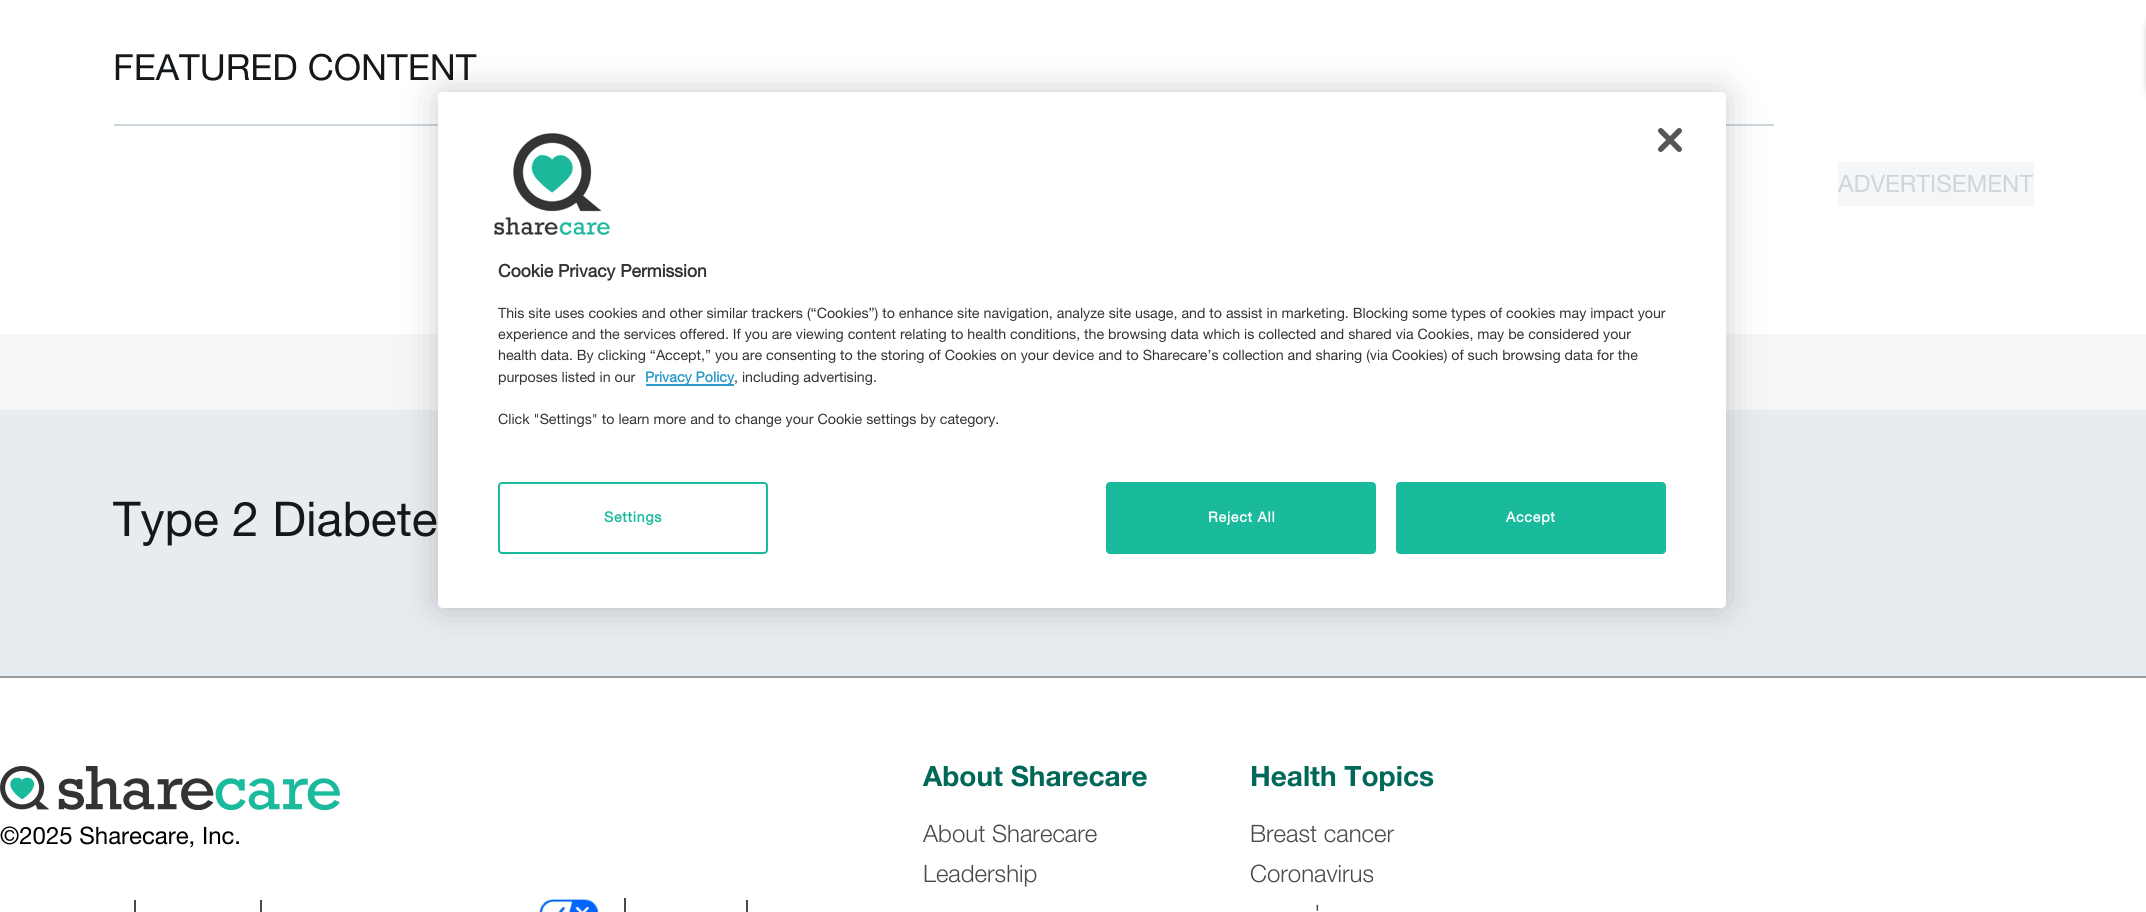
#include <cairo.h>
#include <math.h>
#include <stddef.h>

static cairo_t *ctx;

static void use_color(int r, int g, int b) {
    cairo_set_source_rgb(ctx, r / 255.0, g / 255.0, b / 255.0);
}

static void spaced_text(double x, double y, const char *s, double letter, double word) {
    cairo_move_to(ctx, x, y);
    while (*s) {
        char ch[5] = {0};
        int n = 0;
        do ch[n++] = *s++; while ((*s & 0xC0) == 0x80);
        cairo_show_text(ctx, ch);
        cairo_rel_move_to(ctx, letter + word * (*ch == ' '), 0);
    }
}

static void round_rect(double x, double y, double w, double h, double r) {
    cairo_new_sub_path(ctx);
    cairo_arc(ctx, x + w - r, y + h - r, r, 0, M_PI / 2);
    cairo_arc(ctx, x + r, y + h - r, r, M_PI / 2, M_PI);
    cairo_arc(ctx, x + r, y + r, r, M_PI, 1.5 * M_PI);
    cairo_arc(ctx, x + w - r, y + r, r, 1.5 * M_PI, 2 * M_PI);
    cairo_close_path(ctx);
}

static void shadow(double x, double y, double w, double h, double r, double blur, double alpha) {
    cairo_push_group_with_content(ctx, CAIRO_CONTENT_ALPHA);
    cairo_set_operator(ctx, CAIRO_OPERATOR_SOURCE);
    for (int i = 15; i >= -15 && fmin(w, h) + blur * i / 3 > 0; i -= 2) {
        double e = blur * i / 6;
        cairo_set_source_rgba(ctx, 0, 0, 0, alpha * erfc((i - 1) / 8.5) / 2);
        round_rect(x - e, y - e, w + 2 * e, h + 2 * e, fmax(0, fmin(r + e + blur * .6, fmin(w, h) / 2 + e)));
        cairo_fill(ctx);
    }
    cairo_pattern_t *soft = cairo_pop_group(ctx);
    cairo_mask(ctx, soft);
    cairo_pattern_destroy(soft);
}

static void picture(const char *path, double x, double y, double w, double h) {
    cairo_surface_t *image = cairo_image_surface_create_from_png(path);
    cairo_save(ctx);
    cairo_set_source_surface(ctx, image, x, y);
    cairo_rectangle(ctx, x, y, w, h);
    cairo_fill(ctx);
    cairo_restore(ctx);
    cairo_surface_destroy(image);
}

int main(void) {
    cairo_surface_t *surface = cairo_image_surface_create(CAIRO_FORMAT_RGB24, 2146, 912);
    ctx = cairo_create(surface);
    cairo_font_options_t *options = cairo_font_options_create();
    cairo_font_options_set_hint_metrics(options, CAIRO_HINT_METRICS_OFF);
    cairo_font_options_set_hint_style(options, CAIRO_HINT_STYLE_NONE);
    cairo_set_font_options(ctx, options);
    cairo_set_miter_limit(ctx, 4);
    use_color(255, 255, 255);
    cairo_paint(ctx);
    use_color(155, 155, 155);
    cairo_rectangle(ctx, 0, 676, 2146, 2);
    cairo_fill(ctx);
    use_color(204, 214, 221);
    cairo_rectangle(ctx, 114, 124, 1660, 2);
    cairo_fill(ctx);
    cairo_select_font_face(ctx, "Helvetica Neue", CAIRO_FONT_SLANT_NORMAL, CAIRO_FONT_WEIGHT_NORMAL);
    cairo_set_font_size(ctx, 36);
    use_color(20, 24, 26);
    cairo_move_to(ctx, 113, 80);
    cairo_show_text(ctx, "FEATURED CONTENT");
    use_color(244, 246, 248);
    cairo_rectangle(ctx, 1838, 162, 196, 44);
    cairo_fill(ctx);
    cairo_set_font_size(ctx, 24);
    use_color(204, 214, 221);
    cairo_move_to(ctx, 1838, 192);
    cairo_show_text(ctx, "ADVERTISEMENT");
    use_color(244, 246, 248);
    cairo_rectangle(ctx, 0, 334, 2146, 76);
    cairo_fill(ctx);
    use_color(231, 236, 240);
    cairo_rectangle(ctx, 0, 410, 2146, 266);
    cairo_fill(ctx);
    cairo_set_font_size(ctx, 48);
    use_color(20, 24, 26);
    cairo_move_to(ctx, 113, 536);
    cairo_show_text(ctx, "Type 2 Diabete");
    use_color(0, 0, 0);
    shadow(2146, 2, 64, 110, 55, 3, 0.2);
    shadow(438, 92, 1288, 516, 5, 18, 0.2);
    use_color(255, 255, 255);
    round_rect(438, 92, 1288, 516, 5);
    cairo_fill(ctx);
    picture("img1.png", 1658, 128, 24, 24);
    picture("img2.png", 494, 133, 116, 102);
    cairo_select_font_face(ctx, "Helvetica Neue", CAIRO_FONT_SLANT_NORMAL, CAIRO_FONT_WEIGHT_BOLD);
    cairo_set_font_size(ctx, 17.5);
    use_color(51, 51, 51);
    cairo_move_to(ctx, 498, 277);
    cairo_show_text(ctx, "Cookie Privacy Permission");
    cairo_select_font_face(ctx, "Helvetica Neue", CAIRO_FONT_SLANT_NORMAL, CAIRO_FONT_WEIGHT_NORMAL);
    cairo_set_font_size(ctx, 14.23);
    cairo_move_to(ctx, 498, 318);
    cairo_show_text(ctx, "This site uses cookies and other similar trackers (“Cookies”) to enhance site navigation, analyze site usage, and to assist in marketing. Blocking some types of cookies may impact your");
    cairo_move_to(ctx, 498, 339);
    cairo_show_text(ctx, "experience and the services offered. If you are viewing content relating to health conditions, the browsing data which is collected and shared via Cookies, may be considered your");
    cairo_move_to(ctx, 498, 360);
    cairo_show_text(ctx, "health data. By clicking “Accept,” you are consenting to the storing of Cookies on your device and to Sharecare’s collection and sharing (via Cookies) of such browsing data for the");
    cairo_move_to(ctx, 498, 382);
    cairo_show_text(ctx, "purposes listed in our");
    use_color(44, 154, 204);
    cairo_rectangle(ctx, 646, 384, 88, 2);
    cairo_fill(ctx);
    cairo_select_font_face(ctx, "Helvetica Neue", CAIRO_FONT_SLANT_NORMAL, CAIRO_FONT_WEIGHT_BOLD);
    cairo_move_to(ctx, 645, 382);
    cairo_show_text(ctx, "Privacy Policy");
    cairo_select_font_face(ctx, "Helvetica Neue", CAIRO_FONT_SLANT_NORMAL, CAIRO_FONT_WEIGHT_NORMAL);
    use_color(51, 51, 51);
    cairo_move_to(ctx, 734, 382);
    cairo_show_text(ctx, ", including advertising.");
    cairo_move_to(ctx, 498, 424);
    cairo_show_text(ctx, "Click \"Settings\" to learn more and to change your Cookie settings by category.");
    round_rect(499, 483, 268, 70, 3);
    use_color(26, 186, 156);
    cairo_stroke(ctx);
    cairo_select_font_face(ctx, "Helvetica Neue", CAIRO_FONT_SLANT_NORMAL, CAIRO_FONT_WEIGHT_BOLD);
    spaced_text(604, 522, "Settings", 0.75, 0);
    round_rect(1107, 483, 268, 70, 3);
    cairo_fill_preserve(ctx);
    cairo_stroke(ctx);
    use_color(255, 255, 255);
    spaced_text(1208, 522, "Reject All", 0.75, 0);
    use_color(26, 186, 156);
    round_rect(1397, 483, 268, 70, 3);
    cairo_fill_preserve(ctx);
    cairo_stroke(ctx);
    use_color(255, 255, 255);
    spaced_text(1506, 522, "Accept", 0.75, 0);
    picture("img3.png", 0, 766, 340, 44);
    cairo_select_font_face(ctx, "Helvetica Neue", CAIRO_FONT_SLANT_NORMAL, CAIRO_FONT_WEIGHT_NORMAL);
    cairo_set_font_size(ctx, 24);
    use_color(0, 0, 0);
    cairo_move_to(ctx, 0, 844);
    cairo_show_text(ctx, "©2025 Sharecare, Inc.");
    use_color(74, 74, 74);
    cairo_rectangle(ctx, 134, 900, 2, 12);
    cairo_fill(ctx);
    cairo_rectangle(ctx, 260, 900, 2, 12);
    cairo_fill(ctx);
    cairo_rectangle(ctx, 624, 898, 2, 14);
    cairo_fill(ctx);
    picture("img4.png", 539, 899, 60, 13);
    cairo_rectangle(ctx, 746, 900, 2, 12);
    cairo_fill(ctx);
    cairo_select_font_face(ctx, "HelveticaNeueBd", CAIRO_FONT_SLANT_NORMAL, CAIRO_FONT_WEIGHT_NORMAL);
    cairo_set_font_size(ctx, 28);
    use_color(0, 104, 88);
    cairo_move_to(ctx, 923, 786);
    cairo_show_text(ctx, "About Sharecare");
    cairo_select_font_face(ctx, "Helvetica Neue Light", CAIRO_FONT_SLANT_NORMAL, CAIRO_FONT_WEIGHT_NORMAL);
    cairo_set_font_size(ctx, 24);
    use_color(74, 74, 74);
    cairo_move_to(ctx, 923, 842);
    cairo_show_text(ctx, "About Sharecare");
    cairo_move_to(ctx, 923, 882);
    cairo_show_text(ctx, "Leadership");
    cairo_select_font_face(ctx, "HelveticaNeueBd", CAIRO_FONT_SLANT_NORMAL, CAIRO_FONT_WEIGHT_NORMAL);
    cairo_set_font_size(ctx, 28);
    use_color(0, 104, 88);
    cairo_move_to(ctx, 1250, 786);
    cairo_show_text(ctx, "Health Topics");
    cairo_select_font_face(ctx, "Helvetica Neue Light", CAIRO_FONT_SLANT_NORMAL, CAIRO_FONT_WEIGHT_NORMAL);
    cairo_set_font_size(ctx, 24);
    use_color(74, 74, 74);
    cairo_move_to(ctx, 1250, 842);
    cairo_show_text(ctx, "Breast cancer");
    cairo_move_to(ctx, 1250, 882);
    cairo_show_text(ctx, "Coronavirus");
    cairo_move_to(ctx, 1314, 922);
    cairo_show_text(ctx, "'");
    cairo_surface_write_to_png(surface, "result.png");
    cairo_font_options_destroy(options);
    cairo_destroy(ctx);
    cairo_surface_destroy(surface);
    return 0;
}
